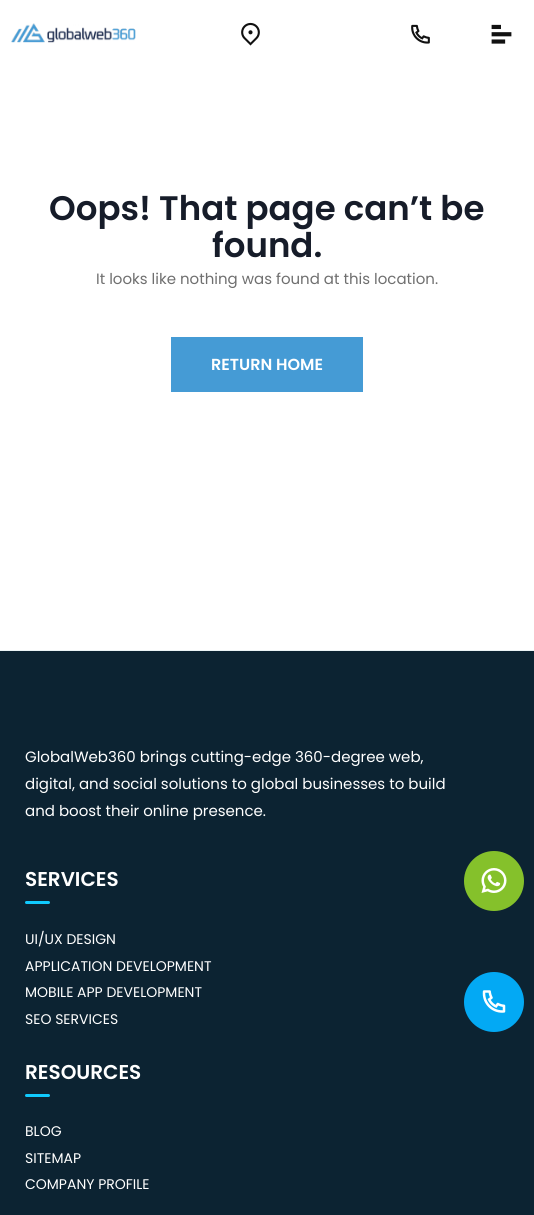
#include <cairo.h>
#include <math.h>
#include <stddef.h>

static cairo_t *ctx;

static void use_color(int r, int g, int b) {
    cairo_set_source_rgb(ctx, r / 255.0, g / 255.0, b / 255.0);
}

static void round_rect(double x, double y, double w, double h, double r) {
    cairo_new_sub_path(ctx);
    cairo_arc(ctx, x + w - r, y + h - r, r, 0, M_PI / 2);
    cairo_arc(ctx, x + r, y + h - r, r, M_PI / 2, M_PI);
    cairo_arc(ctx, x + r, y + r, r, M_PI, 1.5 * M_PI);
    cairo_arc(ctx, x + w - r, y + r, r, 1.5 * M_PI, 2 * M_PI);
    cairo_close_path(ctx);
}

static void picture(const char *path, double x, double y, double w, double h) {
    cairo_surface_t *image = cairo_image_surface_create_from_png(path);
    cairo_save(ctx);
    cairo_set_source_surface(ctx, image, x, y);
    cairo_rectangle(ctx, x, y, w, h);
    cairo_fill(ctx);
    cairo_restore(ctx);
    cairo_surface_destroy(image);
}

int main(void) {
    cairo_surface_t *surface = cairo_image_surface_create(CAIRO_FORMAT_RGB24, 534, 1215);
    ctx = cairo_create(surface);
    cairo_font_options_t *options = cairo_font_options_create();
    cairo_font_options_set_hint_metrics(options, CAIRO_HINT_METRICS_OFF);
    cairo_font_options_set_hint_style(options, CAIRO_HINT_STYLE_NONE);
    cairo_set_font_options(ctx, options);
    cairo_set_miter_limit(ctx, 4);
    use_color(255, 255, 255);
    cairo_paint(ctx);
    picture("img1.png", 11, 23, 125, 20);
    picture("img2.png", 241, 22, 19, 24);
    picture("img3.png", 411, 24, 19, 20);
    picture("img4.png", 491, 24, 21, 20);
    cairo_select_font_face(ctx, "Poppins SemiBold", CAIRO_FONT_SLANT_NORMAL, CAIRO_FONT_WEIGHT_NORMAL);
    cairo_set_font_size(ctx, 34);
    use_color(22, 28, 41);
    cairo_move_to(ctx, 49, 220);
    cairo_show_text(ctx, "Oops! That page can’t be");
    cairo_move_to(ctx, 212, 257);
    cairo_show_text(ctx, "found.");
    cairo_select_font_face(ctx, "Poppins", CAIRO_FONT_SLANT_NORMAL, CAIRO_FONT_WEIGHT_NORMAL);
    cairo_set_font_size(ctx, 15);
    use_color(111, 111, 111);
    cairo_move_to(ctx, 96, 284);
    cairo_show_text(ctx, "It looks like nothing was found at this location.");
    use_color(69, 155, 213);
    cairo_rectangle(ctx, 171, 337, 192, 55);
    cairo_fill(ctx);
    cairo_select_font_face(ctx, "Poppins SemiBold", CAIRO_FONT_SLANT_NORMAL, CAIRO_FONT_WEIGHT_NORMAL);
    cairo_set_font_size(ctx, 16);
    use_color(255, 255, 255);
    cairo_move_to(ctx, 211, 370);
    cairo_show_text(ctx, "RETURN HOME");
    use_color(12, 35, 50);
    cairo_rectangle(ctx, 0, 651, 534, 564);
    cairo_fill(ctx);
    use_color(236, 244, 246);
    cairo_rectangle(ctx, 0, 650, 534, 1);
    cairo_fill(ctx);
    cairo_select_font_face(ctx, "Poppins", CAIRO_FONT_SLANT_NORMAL, CAIRO_FONT_WEIGHT_NORMAL);
    cairo_set_font_size(ctx, 15);
    use_color(255, 255, 255);
    cairo_move_to(ctx, 25, 762);
    cairo_show_text(ctx, "GlobalWeb360 brings cutting-edge 360-degree web,");
    cairo_move_to(ctx, 25, 789);
    cairo_show_text(ctx, "digital, and social solutions to global businesses to build");
    cairo_move_to(ctx, 25, 816);
    cairo_show_text(ctx, "and boost their online presence.");
    cairo_select_font_face(ctx, "Poppins SemiBold", CAIRO_FONT_SLANT_NORMAL, CAIRO_FONT_WEIGHT_NORMAL);
    cairo_set_font_size(ctx, 20);
    cairo_move_to(ctx, 25, 886);
    cairo_show_text(ctx, "SERVICES");
    use_color(16, 202, 254);
    round_rect(25, 901, 25, 3, 1.5);
    cairo_fill(ctx);
    cairo_select_font_face(ctx, "Poppins", CAIRO_FONT_SLANT_NORMAL, CAIRO_FONT_WEIGHT_NORMAL);
    cairo_set_font_size(ctx, 14);
    use_color(255, 255, 255);
    cairo_move_to(ctx, 25, 944);
    cairo_show_text(ctx, "UI/UX DESIGN");
    cairo_move_to(ctx, 25, 971);
    cairo_show_text(ctx, "APPLICATION DEVELOPMENT");
    cairo_move_to(ctx, 25, 997);
    cairo_show_text(ctx, "MOBILE APP DEVELOPMENT");
    cairo_move_to(ctx, 25, 1024);
    cairo_show_text(ctx, "SEO SERVICES");
    cairo_select_font_face(ctx, "Poppins SemiBold", CAIRO_FONT_SLANT_NORMAL, CAIRO_FONT_WEIGHT_NORMAL);
    cairo_set_font_size(ctx, 20);
    cairo_move_to(ctx, 25, 1079);
    cairo_show_text(ctx, "RESOURCES");
    use_color(16, 202, 254);
    round_rect(25, 1094, 25, 3, 1.5);
    cairo_fill(ctx);
    cairo_select_font_face(ctx, "Poppins", CAIRO_FONT_SLANT_NORMAL, CAIRO_FONT_WEIGHT_NORMAL);
    cairo_set_font_size(ctx, 14);
    use_color(255, 255, 255);
    cairo_move_to(ctx, 25, 1136);
    cairo_show_text(ctx, "BLOG");
    cairo_move_to(ctx, 25, 1163);
    cairo_show_text(ctx, "SITEMAP");
    cairo_move_to(ctx, 25, 1189);
    cairo_show_text(ctx, "COMPANY PROFILE");
    use_color(133, 193, 43);
    cairo_new_path(ctx);
    cairo_arc(ctx, 494, 881, 30, 0, 2 * M_PI);
    cairo_fill(ctx);
    picture("img5.png", 481, 868, 26, 25);
    use_color(3, 169, 244);
    cairo_arc(ctx, 494, 1002, 30, 0, 2 * M_PI);
    cairo_fill(ctx);
    picture("img6.png", 482, 990, 24, 23);
    cairo_surface_write_to_png(surface, "result.png");
    cairo_font_options_destroy(options);
    cairo_destroy(ctx);
    cairo_surface_destroy(surface);
    return 0;
}
